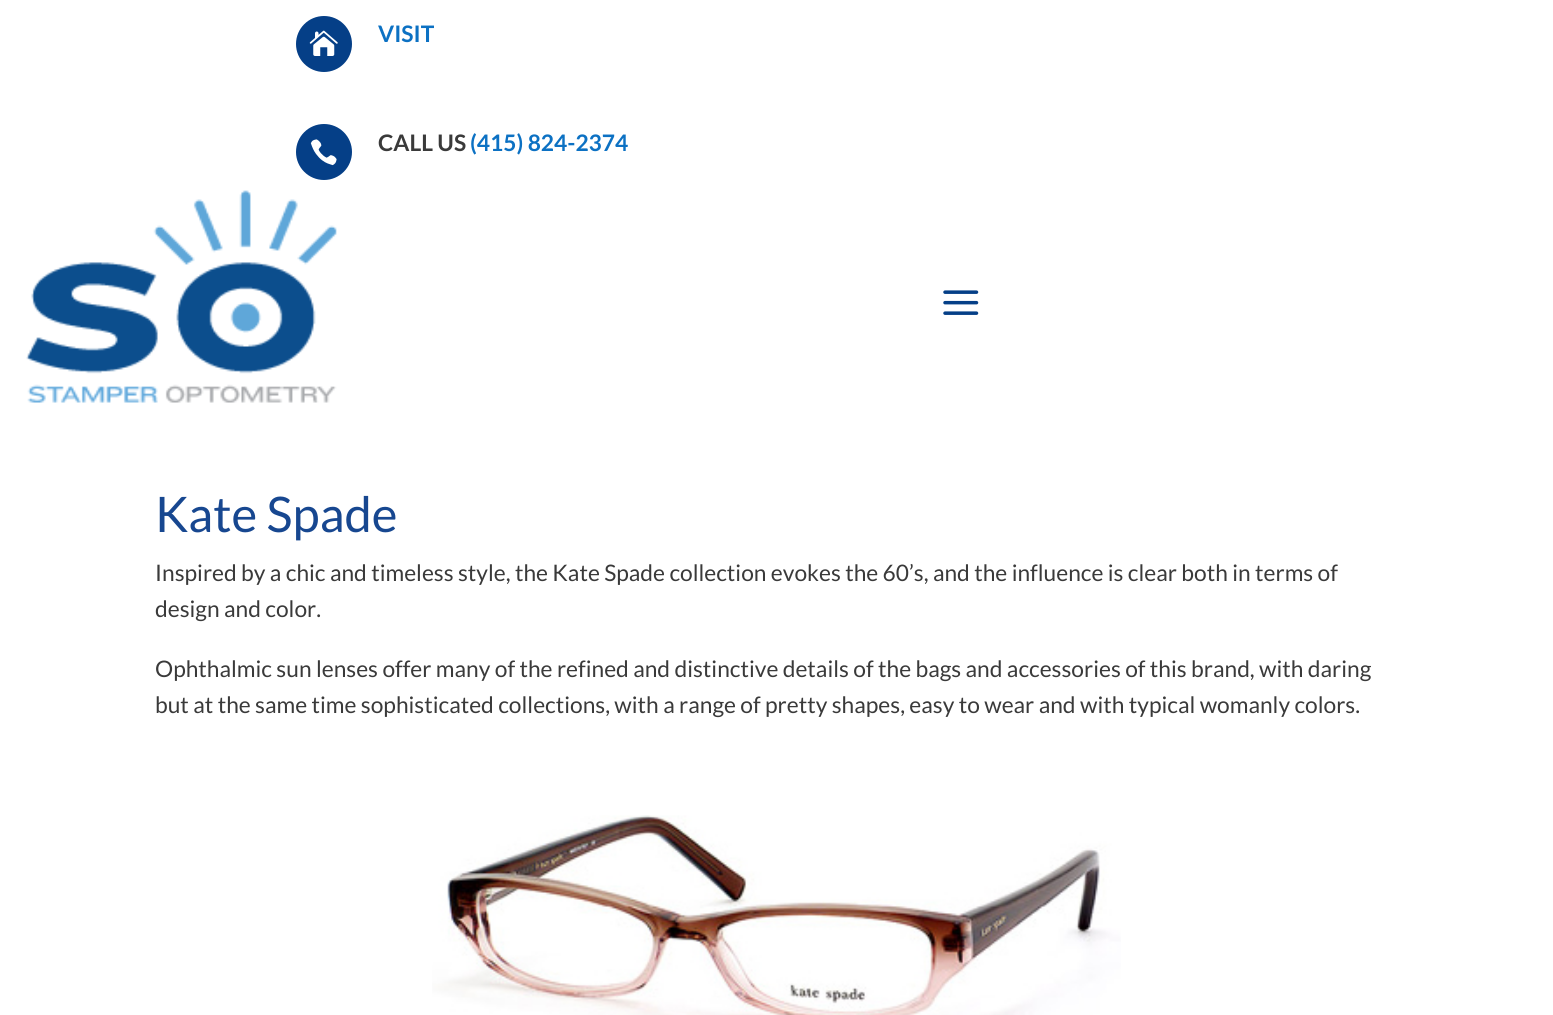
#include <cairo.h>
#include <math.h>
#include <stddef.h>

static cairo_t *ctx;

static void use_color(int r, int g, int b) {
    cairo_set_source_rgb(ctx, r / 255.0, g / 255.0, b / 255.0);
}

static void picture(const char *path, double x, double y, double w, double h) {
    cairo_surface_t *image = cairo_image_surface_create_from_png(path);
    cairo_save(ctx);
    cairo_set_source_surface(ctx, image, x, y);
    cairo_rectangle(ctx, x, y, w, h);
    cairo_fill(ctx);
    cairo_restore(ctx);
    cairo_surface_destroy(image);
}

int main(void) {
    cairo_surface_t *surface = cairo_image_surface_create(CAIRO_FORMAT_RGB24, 1553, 1015);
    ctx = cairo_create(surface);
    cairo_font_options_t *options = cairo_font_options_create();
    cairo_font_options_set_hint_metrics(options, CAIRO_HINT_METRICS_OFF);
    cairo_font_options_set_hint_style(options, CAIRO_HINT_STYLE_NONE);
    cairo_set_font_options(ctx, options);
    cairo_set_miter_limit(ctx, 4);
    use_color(255, 255, 255);
    cairo_paint(ctx);
    use_color(5, 63, 135);
    cairo_arc(ctx, 324, 44, 28, 0, 2 * M_PI);
    cairo_fill(ctx);
    picture("img1.png", 309, 30, 29, 26);
    cairo_select_font_face(ctx, "Lato", CAIRO_FONT_SLANT_NORMAL, CAIRO_FONT_WEIGHT_BOLD);
    cairo_set_font_size(ctx, 22.75);
    use_color(12, 113, 195);
    cairo_move_to(ctx, 378, 42);
    cairo_show_text(ctx, "VISIT");
    use_color(5, 63, 135);
    cairo_new_path(ctx);
    cairo_arc(ctx, 324, 152, 28, 0, 2 * M_PI);
    cairo_fill(ctx);
    picture("img2.png", 310, 139, 27, 27);
    use_color(58, 58, 58);
    cairo_move_to(ctx, 378, 151);
    cairo_show_text(ctx, "CALL US");
    use_color(12, 113, 195);
    cairo_move_to(ctx, 470, 151);
    cairo_show_text(ctx, "(415) 824-2374");
    picture("img3.png", 26, 190, 311, 213);
    picture("img4.png", 943, 290, 36, 25);
    cairo_select_font_face(ctx, "Lato", CAIRO_FONT_SLANT_NORMAL, CAIRO_FONT_WEIGHT_NORMAL);
    cairo_set_font_size(ctx, 49);
    use_color(23, 71, 144);
    cairo_move_to(ctx, 155, 532);
    cairo_show_text(ctx, "Kate Spade");
    cairo_set_font_size(ctx, 22.75);
    use_color(58, 58, 58);
    cairo_move_to(ctx, 155, 581);
    cairo_show_text(ctx, "Inspired by a chic and timeless style, the Kate Spade collection evokes the 60’s, and the influence is clear both in terms of");
    cairo_move_to(ctx, 155, 617);
    cairo_show_text(ctx, "design and color.");
    cairo_move_to(ctx, 155, 677);
    cairo_show_text(ctx, "Ophthalmic sun lenses offer many of the refined and distinctive details of the bags and accessories of this brand, with daring");
    cairo_move_to(ctx, 155, 713);
    cairo_show_text(ctx, "but at the same time sophisticated collections, with a range of pretty shapes, easy to wear and with typical womanly colors.");
    picture("img5.png", 432, 815, 689, 200);
    cairo_surface_write_to_png(surface, "result.png");
    cairo_font_options_destroy(options);
    cairo_destroy(ctx);
    cairo_surface_destroy(surface);
    return 0;
}
